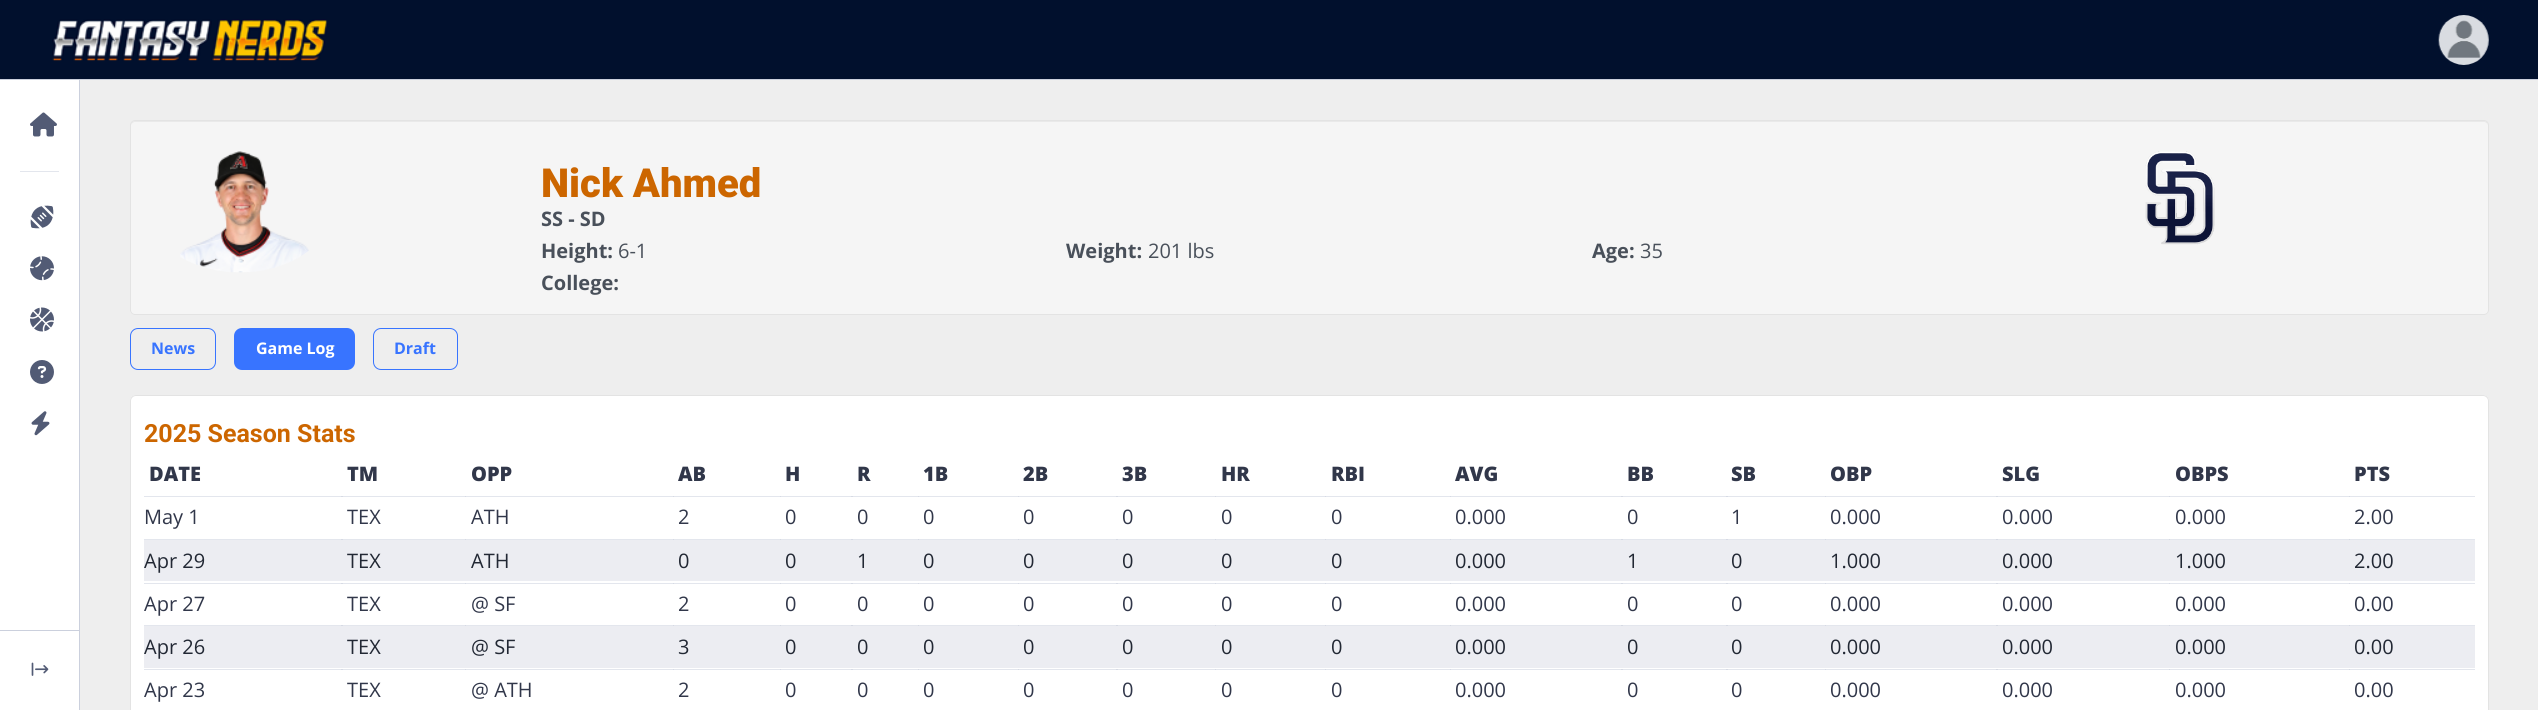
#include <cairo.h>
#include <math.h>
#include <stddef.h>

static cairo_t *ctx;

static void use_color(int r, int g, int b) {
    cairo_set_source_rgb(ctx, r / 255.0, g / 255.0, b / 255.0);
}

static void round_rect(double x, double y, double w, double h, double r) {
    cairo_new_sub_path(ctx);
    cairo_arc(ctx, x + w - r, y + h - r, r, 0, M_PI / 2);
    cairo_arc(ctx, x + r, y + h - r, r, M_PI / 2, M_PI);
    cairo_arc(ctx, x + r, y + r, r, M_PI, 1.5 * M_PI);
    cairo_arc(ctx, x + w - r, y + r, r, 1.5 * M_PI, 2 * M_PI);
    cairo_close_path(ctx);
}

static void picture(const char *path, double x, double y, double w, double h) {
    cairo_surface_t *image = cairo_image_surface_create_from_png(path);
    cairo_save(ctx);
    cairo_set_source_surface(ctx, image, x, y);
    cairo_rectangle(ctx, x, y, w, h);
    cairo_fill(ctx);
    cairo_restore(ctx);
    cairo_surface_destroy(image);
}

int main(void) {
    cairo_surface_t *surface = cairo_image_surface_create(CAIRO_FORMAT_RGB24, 2538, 710);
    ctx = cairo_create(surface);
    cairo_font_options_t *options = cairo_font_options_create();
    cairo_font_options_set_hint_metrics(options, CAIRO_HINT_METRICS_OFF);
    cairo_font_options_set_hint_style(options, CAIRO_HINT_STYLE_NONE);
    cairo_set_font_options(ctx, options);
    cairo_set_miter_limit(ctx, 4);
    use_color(238, 238, 238);
    cairo_paint(ctx);
    use_color(1, 16, 45);
    cairo_rectangle(ctx, 0, 0, 2538, 79);
    cairo_fill(ctx);
    use_color(203, 208, 221);
    cairo_rectangle(ctx, 0, 79, 2538, 1);
    cairo_fill(ctx);
    picture("img1.png", 52, 19, 276, 42);
    picture("img2.png", 2438, 15, 51, 50);
    use_color(255, 255, 255);
    cairo_rectangle(ctx, 0, 80, 79, 630);
    cairo_fill(ctx);
    use_color(203, 208, 221);
    cairo_rectangle(ctx, 79, 80, 1, 630);
    cairo_fill(ctx);
    picture("img3.png", 30, 112, 27, 25);
    use_color(227, 230, 237);
    cairo_rectangle(ctx, 20, 171, 39, 1);
    cairo_fill(ctx);
    picture("img4.png", 30, 205, 24, 24);
    picture("img5.png", 30, 256, 24, 25);
    picture("img6.png", 30, 307, 24, 25);
    picture("img7.png", 30, 360, 24, 24);
    picture("img8.png", 31, 411, 19, 25);
    use_color(203, 208, 221);
    cairo_rectangle(ctx, 0, 630, 79, 1);
    cairo_fill(ctx);
    picture("img9.png", 31, 662, 18, 14);
    use_color(245, 245, 245);
    round_rect(130, 120, 2359, 195, 5);
    cairo_fill(ctx);
    use_color(233, 233, 233);
    cairo_new_path(ctx);
    cairo_move_to(ctx, 135, 122);
    cairo_line_to(ctx, 2484, 122);
    cairo_curve_to(ctx, 2486, 122, 2488, 124, 2488, 126);
    cairo_curve_to(ctx, 2488, 123, 2487, 121, 2484, 121);
    cairo_line_to(ctx, 135, 121);
    cairo_curve_to(ctx, 132, 121, 131, 123, 131, 126);
    cairo_curve_to(ctx, 131, 124, 133, 122, 135, 122);
    cairo_close_path(ctx);
    cairo_fill(ctx);
    round_rect(130.5, 120.5, 2358, 194, 4.5);
    use_color(227, 227, 227);
    cairo_set_line_width(ctx, 1);
    cairo_stroke(ctx);
    picture("img10.png", 180, 151, 129, 122);
    cairo_select_font_face(ctx, "Roboto Black", CAIRO_FONT_SLANT_NORMAL, CAIRO_FONT_WEIGHT_NORMAL);
    cairo_set_font_size(ctx, 40);
    use_color(204, 102, 0);
    cairo_move_to(ctx, 541, 197);
    cairo_show_text(ctx, "Nick Ahmed");
    cairo_select_font_face(ctx, "Open Sans", CAIRO_FONT_SLANT_NORMAL, CAIRO_FONT_WEIGHT_BOLD);
    cairo_set_font_size(ctx, 20);
    use_color(73, 80, 90);
    cairo_move_to(ctx, 541, 226);
    cairo_show_text(ctx, "SS - SD");
    cairo_move_to(ctx, 541, 258);
    cairo_show_text(ctx, "Height:");
    cairo_select_font_face(ctx, "Open Sans", CAIRO_FONT_SLANT_NORMAL, CAIRO_FONT_WEIGHT_NORMAL);
    cairo_move_to(ctx, 618, 258);
    cairo_show_text(ctx, "6-1");
    cairo_select_font_face(ctx, "Open Sans", CAIRO_FONT_SLANT_NORMAL, CAIRO_FONT_WEIGHT_BOLD);
    cairo_move_to(ctx, 1066, 258);
    cairo_show_text(ctx, "Weight:");
    cairo_select_font_face(ctx, "Open Sans", CAIRO_FONT_SLANT_NORMAL, CAIRO_FONT_WEIGHT_NORMAL);
    cairo_move_to(ctx, 1148, 258);
    cairo_show_text(ctx, "201 lbs");
    cairo_select_font_face(ctx, "Open Sans", CAIRO_FONT_SLANT_NORMAL, CAIRO_FONT_WEIGHT_BOLD);
    cairo_move_to(ctx, 1592, 258);
    cairo_show_text(ctx, "Age:");
    cairo_select_font_face(ctx, "Open Sans", CAIRO_FONT_SLANT_NORMAL, CAIRO_FONT_WEIGHT_NORMAL);
    cairo_move_to(ctx, 1640, 258);
    cairo_show_text(ctx, "35");
    cairo_select_font_face(ctx, "Open Sans", CAIRO_FONT_SLANT_NORMAL, CAIRO_FONT_WEIGHT_BOLD);
    cairo_move_to(ctx, 541, 290);
    cairo_show_text(ctx, "College:");
    picture("img11.png", 2145, 151, 70, 94);
    round_rect(130.5, 328.5, 85, 41, 7.5);
    use_color(56, 116, 255);
    cairo_stroke(ctx);
    cairo_set_font_size(ctx, 16);
    cairo_move_to(ctx, 151, 354);
    cairo_show_text(ctx, "News");
    round_rect(234, 328, 121, 42, 8);
    cairo_fill(ctx);
    use_color(255, 255, 255);
    cairo_move_to(ctx, 256, 354);
    cairo_show_text(ctx, "Game Log");
    round_rect(373.5, 328.5, 84, 41, 7.5);
    use_color(56, 116, 255);
    cairo_stroke(ctx);
    cairo_move_to(ctx, 394, 354);
    cairo_show_text(ctx, "Draft");
    use_color(255, 255, 255);
    round_rect(130, 395, 2359, 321, 6);
    cairo_fill(ctx);
    use_color(227, 230, 237);
    cairo_rectangle(ctx, 144, 496, 2206, 1);
    cairo_fill(ctx);
    use_color(214, 218, 228);
    cairo_rectangle(ctx, 341, 496, 2, 1);
    cairo_fill(ctx);
    cairo_rectangle(ctx, 465, 496, 1, 1);
    cairo_fill(ctx);
    cairo_rectangle(ctx, 673, 496, 1, 1);
    cairo_fill(ctx);
    cairo_rectangle(ctx, 780, 496, 1, 1);
    cairo_fill(ctx);
    cairo_rectangle(ctx, 851, 496, 2, 1);
    cairo_fill(ctx);
    cairo_rectangle(ctx, 918, 496, 1, 1);
    cairo_fill(ctx);
    cairo_rectangle(ctx, 1018, 496, 1, 1);
    cairo_fill(ctx);
    cairo_rectangle(ctx, 1116, 496, 2, 1);
    cairo_fill(ctx);
    cairo_rectangle(ctx, 1215, 496, 1, 1);
    cairo_fill(ctx);
    cairo_rectangle(ctx, 1325, 496, 1, 1);
    cairo_fill(ctx);
    cairo_rectangle(ctx, 1450, 496, 1, 1);
    cairo_fill(ctx);
    cairo_rectangle(ctx, 1621, 496, 2, 1);
    cairo_fill(ctx);
    cairo_rectangle(ctx, 1726, 496, 2, 1);
    cairo_fill(ctx);
    cairo_rectangle(ctx, 1825, 496, 1, 1);
    cairo_fill(ctx);
    cairo_rectangle(ctx, 1996, 496, 2, 1);
    cairo_fill(ctx);
    cairo_rectangle(ctx, 2169, 496, 1, 1);
    cairo_fill(ctx);
    use_color(227, 230, 237);
    cairo_rectangle(ctx, 144, 539, 2206, 1);
    cairo_fill(ctx);
    use_color(214, 218, 228);
    cairo_rectangle(ctx, 341, 539, 2, 1);
    cairo_fill(ctx);
    cairo_rectangle(ctx, 465, 539, 1, 1);
    cairo_fill(ctx);
    cairo_rectangle(ctx, 673, 539, 1, 1);
    cairo_fill(ctx);
    cairo_rectangle(ctx, 780, 539, 1, 1);
    cairo_fill(ctx);
    cairo_rectangle(ctx, 851, 539, 2, 1);
    cairo_fill(ctx);
    cairo_rectangle(ctx, 918, 539, 1, 1);
    cairo_fill(ctx);
    cairo_rectangle(ctx, 1018, 539, 1, 1);
    cairo_fill(ctx);
    cairo_rectangle(ctx, 1116, 539, 2, 1);
    cairo_fill(ctx);
    cairo_rectangle(ctx, 1215, 539, 1, 1);
    cairo_fill(ctx);
    cairo_rectangle(ctx, 1325, 539, 1, 1);
    cairo_fill(ctx);
    cairo_rectangle(ctx, 1450, 539, 1, 1);
    cairo_fill(ctx);
    cairo_rectangle(ctx, 1621, 539, 2, 1);
    cairo_fill(ctx);
    cairo_rectangle(ctx, 1726, 539, 2, 1);
    cairo_fill(ctx);
    cairo_rectangle(ctx, 1825, 539, 1, 1);
    cairo_fill(ctx);
    cairo_rectangle(ctx, 1996, 539, 2, 1);
    cairo_fill(ctx);
    cairo_rectangle(ctx, 2169, 539, 1, 1);
    cairo_fill(ctx);
    use_color(227, 230, 237);
    cairo_rectangle(ctx, 144, 583, 2206, 1);
    cairo_fill(ctx);
    use_color(214, 218, 228);
    cairo_rectangle(ctx, 341, 583, 2, 1);
    cairo_fill(ctx);
    cairo_rectangle(ctx, 465, 583, 1, 1);
    cairo_fill(ctx);
    cairo_rectangle(ctx, 673, 583, 1, 1);
    cairo_fill(ctx);
    cairo_rectangle(ctx, 780, 583, 1, 1);
    cairo_fill(ctx);
    cairo_rectangle(ctx, 851, 583, 2, 1);
    cairo_fill(ctx);
    cairo_rectangle(ctx, 918, 583, 1, 1);
    cairo_fill(ctx);
    cairo_rectangle(ctx, 1018, 583, 1, 1);
    cairo_fill(ctx);
    cairo_rectangle(ctx, 1116, 583, 2, 1);
    cairo_fill(ctx);
    cairo_rectangle(ctx, 1215, 583, 1, 1);
    cairo_fill(ctx);
    cairo_rectangle(ctx, 1325, 583, 1, 1);
    cairo_fill(ctx);
    cairo_rectangle(ctx, 1450, 583, 1, 1);
    cairo_fill(ctx);
    cairo_rectangle(ctx, 1621, 583, 2, 1);
    cairo_fill(ctx);
    cairo_rectangle(ctx, 1726, 583, 2, 1);
    cairo_fill(ctx);
    cairo_rectangle(ctx, 1825, 583, 1, 1);
    cairo_fill(ctx);
    cairo_rectangle(ctx, 1996, 583, 2, 1);
    cairo_fill(ctx);
    cairo_rectangle(ctx, 2169, 583, 1, 1);
    cairo_fill(ctx);
    use_color(227, 230, 237);
    cairo_rectangle(ctx, 144, 625, 2206, 1);
    cairo_fill(ctx);
    use_color(214, 218, 228);
    cairo_rectangle(ctx, 341, 625, 2, 1);
    cairo_fill(ctx);
    cairo_rectangle(ctx, 465, 625, 1, 1);
    cairo_fill(ctx);
    cairo_rectangle(ctx, 673, 625, 1, 1);
    cairo_fill(ctx);
    cairo_rectangle(ctx, 780, 625, 1, 1);
    cairo_fill(ctx);
    cairo_rectangle(ctx, 851, 625, 2, 1);
    cairo_fill(ctx);
    cairo_rectangle(ctx, 918, 625, 1, 1);
    cairo_fill(ctx);
    cairo_rectangle(ctx, 1018, 625, 1, 1);
    cairo_fill(ctx);
    cairo_rectangle(ctx, 1116, 625, 2, 1);
    cairo_fill(ctx);
    cairo_rectangle(ctx, 1215, 625, 1, 1);
    cairo_fill(ctx);
    cairo_rectangle(ctx, 1325, 625, 1, 1);
    cairo_fill(ctx);
    cairo_rectangle(ctx, 1450, 625, 1, 1);
    cairo_fill(ctx);
    cairo_rectangle(ctx, 1621, 625, 2, 1);
    cairo_fill(ctx);
    cairo_rectangle(ctx, 1726, 625, 2, 1);
    cairo_fill(ctx);
    cairo_rectangle(ctx, 1825, 625, 1, 1);
    cairo_fill(ctx);
    cairo_rectangle(ctx, 1996, 625, 2, 1);
    cairo_fill(ctx);
    cairo_rectangle(ctx, 2169, 625, 1, 1);
    cairo_fill(ctx);
    use_color(227, 230, 237);
    cairo_rectangle(ctx, 144, 669, 2206, 1);
    cairo_fill(ctx);
    use_color(214, 218, 228);
    cairo_rectangle(ctx, 341, 669, 2, 1);
    cairo_fill(ctx);
    cairo_rectangle(ctx, 465, 669, 1, 1);
    cairo_fill(ctx);
    cairo_rectangle(ctx, 673, 669, 1, 1);
    cairo_fill(ctx);
    cairo_rectangle(ctx, 780, 669, 1, 1);
    cairo_fill(ctx);
    cairo_rectangle(ctx, 851, 669, 2, 1);
    cairo_fill(ctx);
    cairo_rectangle(ctx, 918, 669, 1, 1);
    cairo_fill(ctx);
    cairo_rectangle(ctx, 1018, 669, 1, 1);
    cairo_fill(ctx);
    cairo_rectangle(ctx, 1116, 669, 2, 1);
    cairo_fill(ctx);
    cairo_rectangle(ctx, 1215, 669, 1, 1);
    cairo_fill(ctx);
    cairo_rectangle(ctx, 1325, 669, 1, 1);
    cairo_fill(ctx);
    cairo_rectangle(ctx, 1450, 669, 1, 1);
    cairo_fill(ctx);
    cairo_rectangle(ctx, 1621, 669, 2, 1);
    cairo_fill(ctx);
    cairo_rectangle(ctx, 1726, 669, 2, 1);
    cairo_fill(ctx);
    cairo_rectangle(ctx, 1825, 669, 1, 1);
    cairo_fill(ctx);
    cairo_rectangle(ctx, 1996, 669, 2, 1);
    cairo_fill(ctx);
    cairo_rectangle(ctx, 2169, 669, 1, 1);
    cairo_fill(ctx);
    round_rect(130.5, 395.5, 2358, 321, 5.5);
    use_color(227, 227, 227);
    cairo_stroke(ctx);
    cairo_select_font_face(ctx, "Roboto", CAIRO_FONT_SLANT_NORMAL, CAIRO_FONT_WEIGHT_BOLD);
    cairo_set_font_size(ctx, 25);
    use_color(204, 102, 0);
    cairo_move_to(ctx, 144, 442);
    cairo_show_text(ctx, "2025 Season Stats");
    cairo_select_font_face(ctx, "Open Sans ExtraBold", CAIRO_FONT_SLANT_NORMAL, CAIRO_FONT_WEIGHT_NORMAL);
    cairo_set_font_size(ctx, 20);
    use_color(49, 55, 74);
    cairo_move_to(ctx, 149, 481);
    cairo_show_text(ctx, "DATE");
    cairo_move_to(ctx, 347, 481);
    cairo_show_text(ctx, "TM");
    cairo_move_to(ctx, 471, 481);
    cairo_show_text(ctx, "OPP");
    cairo_move_to(ctx, 678, 481);
    cairo_show_text(ctx, "AB");
    cairo_move_to(ctx, 785, 481);
    cairo_show_text(ctx, "H");
    cairo_move_to(ctx, 857, 481);
    cairo_show_text(ctx, "R");
    cairo_move_to(ctx, 923, 481);
    cairo_show_text(ctx, "1B");
    cairo_move_to(ctx, 1023, 481);
    cairo_show_text(ctx, "2B");
    cairo_move_to(ctx, 1122, 481);
    cairo_show_text(ctx, "3B");
    cairo_move_to(ctx, 1221, 481);
    cairo_show_text(ctx, "HR");
    cairo_move_to(ctx, 1331, 481);
    cairo_show_text(ctx, "RBI");
    cairo_move_to(ctx, 1455, 481);
    cairo_show_text(ctx, "AVG");
    cairo_move_to(ctx, 1627, 481);
    cairo_show_text(ctx, "BB");
    cairo_move_to(ctx, 1731, 481);
    cairo_show_text(ctx, "SB");
    cairo_move_to(ctx, 1830, 481);
    cairo_show_text(ctx, "OBP");
    cairo_move_to(ctx, 2002, 481);
    cairo_show_text(ctx, "SLG");
    cairo_move_to(ctx, 2175, 481);
    cairo_show_text(ctx, "OBPS");
    use_color(227, 230, 237);
    cairo_rectangle(ctx, 2349, 496, 126, 1);
    cairo_fill(ctx);
    use_color(214, 218, 228);
    cairo_rectangle(ctx, 2349, 496, 1, 1);
    cairo_fill(ctx);
    use_color(49, 55, 74);
    cairo_move_to(ctx, 2354, 481);
    cairo_show_text(ctx, "PTS");
    cairo_select_font_face(ctx, "Open Sans", CAIRO_FONT_SLANT_NORMAL, CAIRO_FONT_WEIGHT_NORMAL);
    cairo_move_to(ctx, 144, 524);
    cairo_show_text(ctx, "May 1");
    cairo_move_to(ctx, 347, 524);
    cairo_show_text(ctx, "TEX");
    cairo_move_to(ctx, 471, 524);
    cairo_show_text(ctx, "ATH");
    cairo_move_to(ctx, 678, 524);
    cairo_show_text(ctx, "2");
    cairo_move_to(ctx, 785, 524);
    cairo_show_text(ctx, "0");
    cairo_move_to(ctx, 857, 524);
    cairo_show_text(ctx, "0");
    cairo_move_to(ctx, 923, 524);
    cairo_show_text(ctx, "0");
    cairo_move_to(ctx, 1023, 524);
    cairo_show_text(ctx, "0");
    cairo_move_to(ctx, 1122, 524);
    cairo_show_text(ctx, "0");
    cairo_move_to(ctx, 1221, 524);
    cairo_show_text(ctx, "0");
    cairo_move_to(ctx, 1331, 524);
    cairo_show_text(ctx, "0");
    cairo_move_to(ctx, 1455, 524);
    cairo_show_text(ctx, "0.000");
    cairo_move_to(ctx, 1627, 524);
    cairo_show_text(ctx, "0");
    cairo_move_to(ctx, 1731, 524);
    cairo_show_text(ctx, "1");
    cairo_move_to(ctx, 1830, 524);
    cairo_show_text(ctx, "0.000");
    cairo_move_to(ctx, 2002, 524);
    cairo_show_text(ctx, "0.000");
    cairo_move_to(ctx, 2175, 524);
    cairo_show_text(ctx, "0.000");
    use_color(227, 230, 237);
    cairo_rectangle(ctx, 2349, 539, 126, 1);
    cairo_fill(ctx);
    use_color(214, 218, 228);
    cairo_rectangle(ctx, 2349, 539, 1, 1);
    cairo_fill(ctx);
    use_color(49, 55, 74);
    cairo_move_to(ctx, 2354, 524);
    cairo_show_text(ctx, "2.00");
    use_color(236, 237, 242);
    cairo_rectangle(ctx, 144, 540, 2331, 41);
    cairo_fill(ctx);
    use_color(34, 40, 52);
    cairo_move_to(ctx, 144, 568);
    cairo_show_text(ctx, "Apr 29");
    cairo_move_to(ctx, 347, 568);
    cairo_show_text(ctx, "TEX");
    cairo_move_to(ctx, 471, 568);
    cairo_show_text(ctx, "ATH");
    cairo_move_to(ctx, 678, 568);
    cairo_show_text(ctx, "0");
    cairo_move_to(ctx, 785, 568);
    cairo_show_text(ctx, "0");
    cairo_move_to(ctx, 857, 568);
    cairo_show_text(ctx, "1");
    cairo_move_to(ctx, 923, 568);
    cairo_show_text(ctx, "0");
    cairo_move_to(ctx, 1023, 568);
    cairo_show_text(ctx, "0");
    cairo_move_to(ctx, 1122, 568);
    cairo_show_text(ctx, "0");
    cairo_move_to(ctx, 1221, 568);
    cairo_show_text(ctx, "0");
    cairo_move_to(ctx, 1331, 568);
    cairo_show_text(ctx, "0");
    cairo_move_to(ctx, 1455, 568);
    cairo_show_text(ctx, "0.000");
    cairo_move_to(ctx, 1627, 568);
    cairo_show_text(ctx, "1");
    cairo_move_to(ctx, 1731, 568);
    cairo_show_text(ctx, "0");
    cairo_move_to(ctx, 1830, 568);
    cairo_show_text(ctx, "1.000");
    cairo_move_to(ctx, 2002, 568);
    cairo_show_text(ctx, "0.000");
    cairo_move_to(ctx, 2175, 568);
    cairo_show_text(ctx, "1.000");
    use_color(227, 230, 237);
    cairo_rectangle(ctx, 2349, 583, 126, 1);
    cairo_fill(ctx);
    use_color(214, 218, 228);
    cairo_rectangle(ctx, 2349, 583, 1, 1);
    cairo_fill(ctx);
    use_color(34, 40, 52);
    cairo_move_to(ctx, 2354, 568);
    cairo_show_text(ctx, "2.00");
    use_color(49, 55, 74);
    cairo_move_to(ctx, 144, 611);
    cairo_show_text(ctx, "Apr 27");
    cairo_move_to(ctx, 347, 611);
    cairo_show_text(ctx, "TEX");
    cairo_move_to(ctx, 471, 611);
    cairo_show_text(ctx, "@ SF");
    cairo_move_to(ctx, 678, 611);
    cairo_show_text(ctx, "2");
    cairo_move_to(ctx, 785, 611);
    cairo_show_text(ctx, "0");
    cairo_move_to(ctx, 857, 611);
    cairo_show_text(ctx, "0");
    cairo_move_to(ctx, 923, 611);
    cairo_show_text(ctx, "0");
    cairo_move_to(ctx, 1023, 611);
    cairo_show_text(ctx, "0");
    cairo_move_to(ctx, 1122, 611);
    cairo_show_text(ctx, "0");
    cairo_move_to(ctx, 1221, 611);
    cairo_show_text(ctx, "0");
    cairo_move_to(ctx, 1331, 611);
    cairo_show_text(ctx, "0");
    cairo_move_to(ctx, 1455, 611);
    cairo_show_text(ctx, "0.000");
    cairo_move_to(ctx, 1627, 611);
    cairo_show_text(ctx, "0");
    cairo_move_to(ctx, 1731, 611);
    cairo_show_text(ctx, "0");
    cairo_move_to(ctx, 1830, 611);
    cairo_show_text(ctx, "0.000");
    cairo_move_to(ctx, 2002, 611);
    cairo_show_text(ctx, "0.000");
    cairo_move_to(ctx, 2175, 611);
    cairo_show_text(ctx, "0.000");
    use_color(227, 230, 237);
    cairo_rectangle(ctx, 2349, 625, 126, 1);
    cairo_fill(ctx);
    use_color(214, 218, 228);
    cairo_rectangle(ctx, 2349, 625, 1, 1);
    cairo_fill(ctx);
    use_color(49, 55, 74);
    cairo_move_to(ctx, 2354, 611);
    cairo_show_text(ctx, "0.00");
    use_color(236, 237, 242);
    cairo_rectangle(ctx, 144, 626, 2331, 42);
    cairo_fill(ctx);
    use_color(34, 40, 52);
    cairo_move_to(ctx, 144, 654);
    cairo_show_text(ctx, "Apr 26");
    cairo_move_to(ctx, 347, 654);
    cairo_show_text(ctx, "TEX");
    cairo_move_to(ctx, 471, 654);
    cairo_show_text(ctx, "@ SF");
    cairo_move_to(ctx, 678, 654);
    cairo_show_text(ctx, "3");
    cairo_move_to(ctx, 785, 654);
    cairo_show_text(ctx, "0");
    cairo_move_to(ctx, 857, 654);
    cairo_show_text(ctx, "0");
    cairo_move_to(ctx, 923, 654);
    cairo_show_text(ctx, "0");
    cairo_move_to(ctx, 1023, 654);
    cairo_show_text(ctx, "0");
    cairo_move_to(ctx, 1122, 654);
    cairo_show_text(ctx, "0");
    cairo_move_to(ctx, 1221, 654);
    cairo_show_text(ctx, "0");
    cairo_move_to(ctx, 1331, 654);
    cairo_show_text(ctx, "0");
    cairo_move_to(ctx, 1455, 654);
    cairo_show_text(ctx, "0.000");
    cairo_move_to(ctx, 1627, 654);
    cairo_show_text(ctx, "0");
    cairo_move_to(ctx, 1731, 654);
    cairo_show_text(ctx, "0");
    cairo_move_to(ctx, 1830, 654);
    cairo_show_text(ctx, "0.000");
    cairo_move_to(ctx, 2002, 654);
    cairo_show_text(ctx, "0.000");
    cairo_move_to(ctx, 2175, 654);
    cairo_show_text(ctx, "0.000");
    use_color(227, 230, 237);
    cairo_rectangle(ctx, 2349, 669, 126, 1);
    cairo_fill(ctx);
    use_color(214, 218, 228);
    cairo_rectangle(ctx, 2349, 669, 1, 1);
    cairo_fill(ctx);
    use_color(34, 40, 52);
    cairo_move_to(ctx, 2354, 654);
    cairo_show_text(ctx, "0.00");
    use_color(49, 55, 74);
    cairo_move_to(ctx, 144, 697);
    cairo_show_text(ctx, "Apr 23");
    cairo_move_to(ctx, 347, 697);
    cairo_show_text(ctx, "TEX");
    cairo_move_to(ctx, 471, 697);
    cairo_show_text(ctx, "@ ATH");
    cairo_move_to(ctx, 678, 697);
    cairo_show_text(ctx, "2");
    cairo_move_to(ctx, 785, 697);
    cairo_show_text(ctx, "0");
    cairo_move_to(ctx, 857, 697);
    cairo_show_text(ctx, "0");
    cairo_move_to(ctx, 923, 697);
    cairo_show_text(ctx, "0");
    cairo_move_to(ctx, 1023, 697);
    cairo_show_text(ctx, "0");
    cairo_move_to(ctx, 1122, 697);
    cairo_show_text(ctx, "0");
    cairo_move_to(ctx, 1221, 697);
    cairo_show_text(ctx, "0");
    cairo_move_to(ctx, 1331, 697);
    cairo_show_text(ctx, "0");
    cairo_move_to(ctx, 1455, 697);
    cairo_show_text(ctx, "0.000");
    cairo_move_to(ctx, 1627, 697);
    cairo_show_text(ctx, "0");
    cairo_move_to(ctx, 1731, 697);
    cairo_show_text(ctx, "0");
    cairo_move_to(ctx, 1830, 697);
    cairo_show_text(ctx, "0.000");
    cairo_move_to(ctx, 2002, 697);
    cairo_show_text(ctx, "0.000");
    cairo_move_to(ctx, 2175, 697);
    cairo_show_text(ctx, "0.000");
    cairo_move_to(ctx, 2354, 697);
    cairo_show_text(ctx, "0.00");
    cairo_surface_write_to_png(surface, "result.png");
    cairo_font_options_destroy(options);
    cairo_destroy(ctx);
    cairo_surface_destroy(surface);
    return 0;
}
